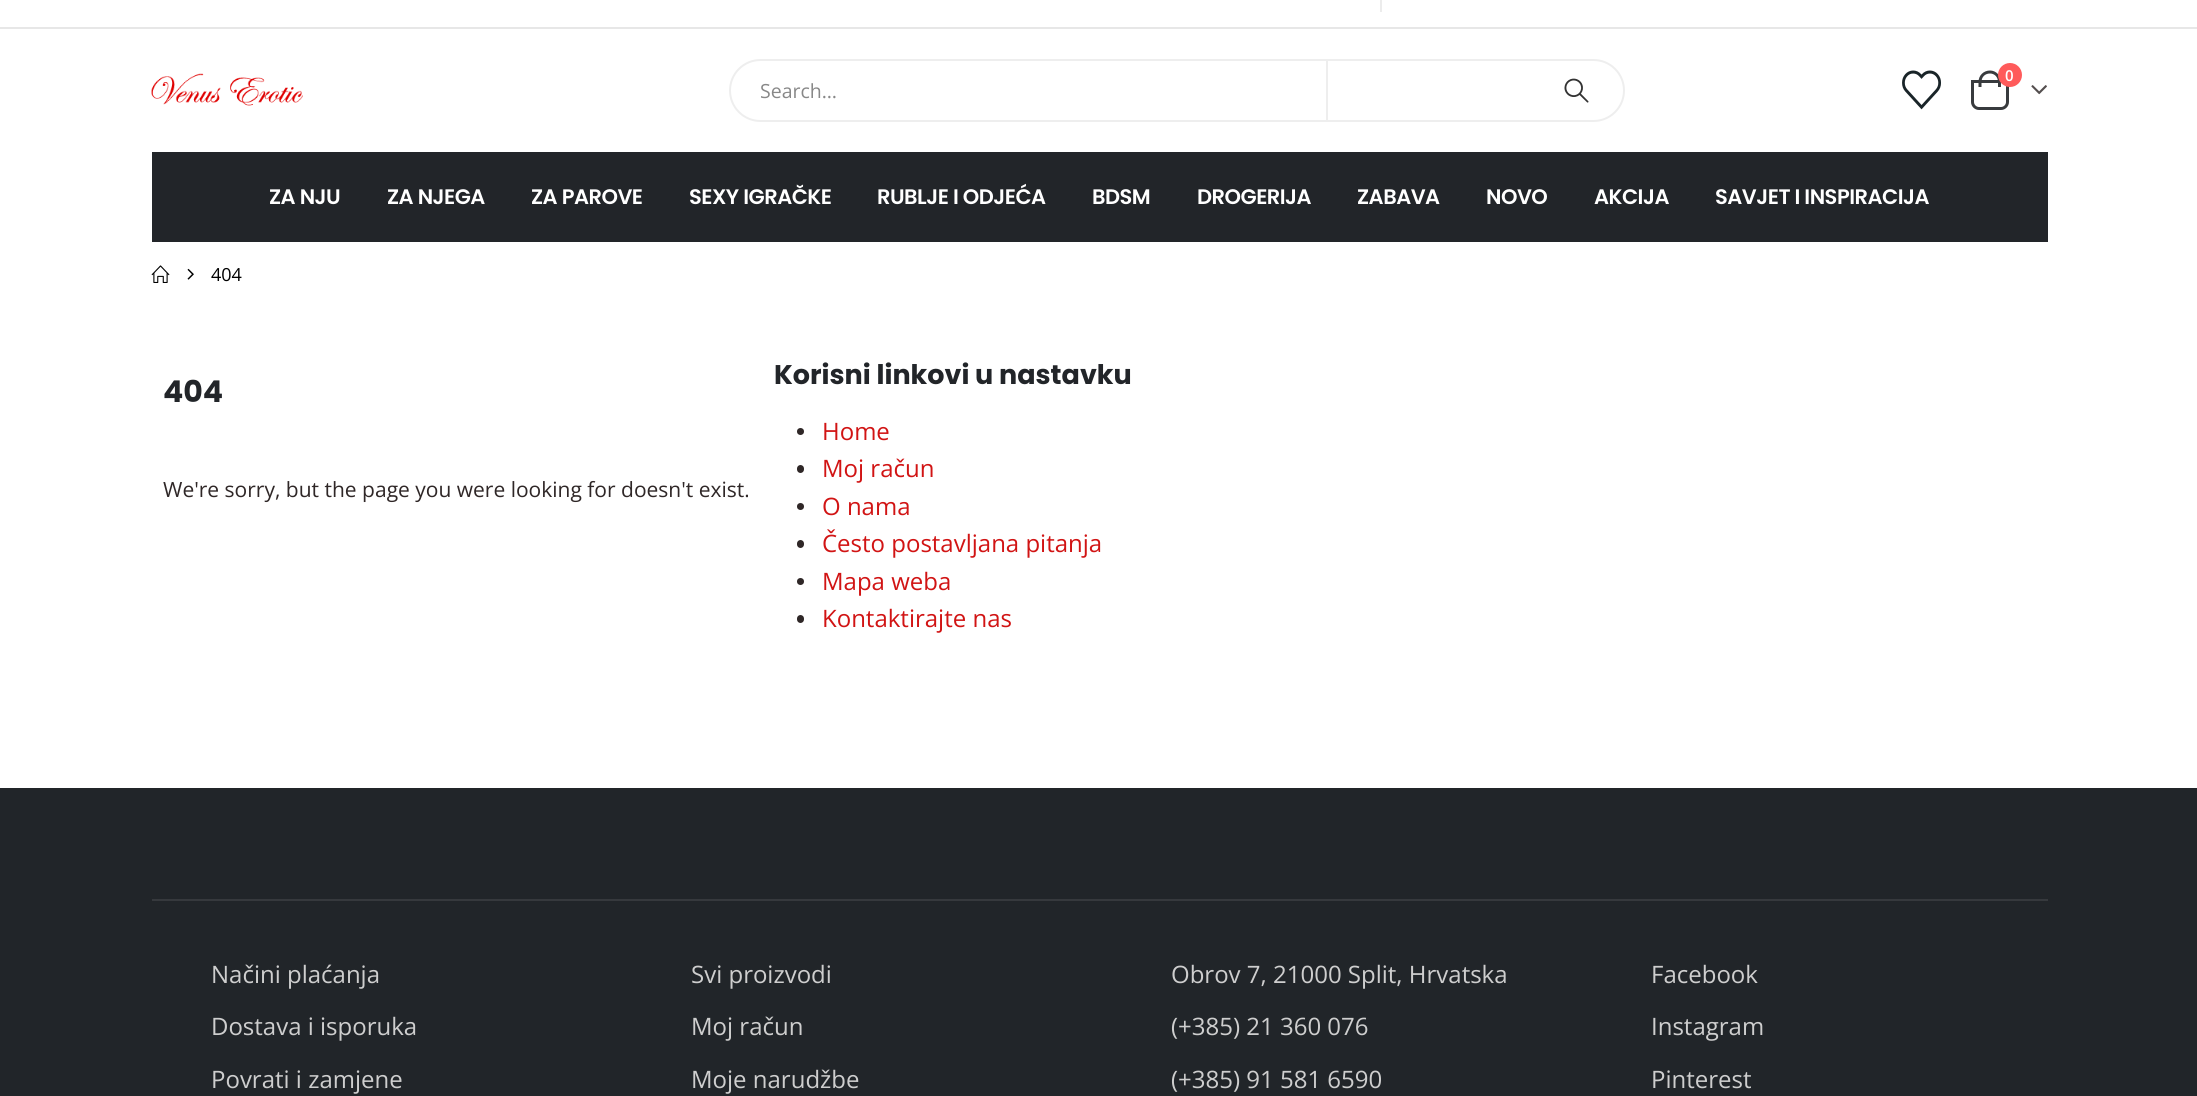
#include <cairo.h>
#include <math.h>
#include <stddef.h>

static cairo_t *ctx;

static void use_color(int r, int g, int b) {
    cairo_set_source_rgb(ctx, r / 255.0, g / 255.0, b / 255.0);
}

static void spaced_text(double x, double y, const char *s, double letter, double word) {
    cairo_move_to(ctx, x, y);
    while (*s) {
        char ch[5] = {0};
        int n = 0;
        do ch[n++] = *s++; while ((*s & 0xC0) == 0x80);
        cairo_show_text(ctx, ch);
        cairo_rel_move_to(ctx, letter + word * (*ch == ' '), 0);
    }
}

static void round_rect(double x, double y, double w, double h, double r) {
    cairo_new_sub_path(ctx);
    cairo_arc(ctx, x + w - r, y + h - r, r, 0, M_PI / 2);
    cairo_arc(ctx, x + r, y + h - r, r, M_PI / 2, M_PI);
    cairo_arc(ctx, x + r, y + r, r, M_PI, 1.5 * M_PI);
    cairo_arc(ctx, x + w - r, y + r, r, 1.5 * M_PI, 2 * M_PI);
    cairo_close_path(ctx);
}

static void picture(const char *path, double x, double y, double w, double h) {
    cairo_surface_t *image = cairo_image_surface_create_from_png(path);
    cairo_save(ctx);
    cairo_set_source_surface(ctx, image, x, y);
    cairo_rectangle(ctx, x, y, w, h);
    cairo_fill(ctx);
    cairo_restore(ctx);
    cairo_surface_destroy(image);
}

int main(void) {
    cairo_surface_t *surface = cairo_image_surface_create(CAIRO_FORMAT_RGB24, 2197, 1096);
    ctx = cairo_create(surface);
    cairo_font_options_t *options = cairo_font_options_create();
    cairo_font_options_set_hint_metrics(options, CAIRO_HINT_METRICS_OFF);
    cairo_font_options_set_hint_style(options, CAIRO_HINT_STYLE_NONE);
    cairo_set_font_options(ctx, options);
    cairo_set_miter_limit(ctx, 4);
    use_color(255, 255, 255);
    cairo_paint(ctx);
    use_color(231, 231, 231);
    cairo_rectangle(ctx, 0, 27, 2197, 2);
    cairo_fill(ctx);
    use_color(236, 236, 236);
    cairo_rectangle(ctx, 1380, 0, 2, 12);
    cairo_fill(ctx);
    picture("img1.png", 151, 73, 152, 33);
    round_rect(730, 60, 894, 61, 30.5);
    use_color(238, 238, 238);
    cairo_stroke(ctx);
    cairo_rectangle(ctx, 1326, 60, 2, 60);
    cairo_fill(ctx);
    cairo_select_font_face(ctx, "Open Sans", CAIRO_FONT_SLANT_NORMAL, CAIRO_FONT_WEIGHT_NORMAL);
    cairo_set_font_size(ctx, 19.5);
    use_color(136, 136, 136);
    cairo_move_to(ctx, 760, 98);
    cairo_show_text(ctx, "Search…");
    picture("img2.png", 1564, 78, 25, 25);
    picture("img3.png", 1902, 70, 39, 40);
    cairo_new_path(ctx);
    cairo_move_to(ctx, 1972.5, 81.5);
    cairo_line_to(ctx, 2007.5, 81.5);
    cairo_line_to(ctx, 2007.5, 102);
    cairo_curve_to(ctx, 2007.5, 105.5, 2004.5, 108.5, 2001, 108.5);
    cairo_line_to(ctx, 1979, 108.5);
    cairo_curve_to(ctx, 1975.5, 108.5, 1972.5, 105.5, 1972.5, 102);
    cairo_close_path(ctx);
    use_color(56, 59, 62);
    cairo_set_line_width(ctx, 3);
    cairo_stroke(ctx);
    cairo_set_fill_rule(ctx, CAIRO_FILL_RULE_EVEN_ODD);
    cairo_new_path(ctx);
    cairo_move_to(ctx, 1990, 70.5);
    cairo_curve_to(ctx, 1996, 70.5, 2001, 75.5, 2001, 82);
    cairo_line_to(ctx, 2001, 87);
    cairo_line_to(ctx, 1978.5, 87);
    cairo_line_to(ctx, 1978.5, 82);
    cairo_curve_to(ctx, 1978.5, 75.5, 1983.5, 70.5, 1990, 70.5);
    cairo_close_path(ctx);
    cairo_move_to(ctx, 1990, 73.5);
    cairo_curve_to(ctx, 1994.5, 73.5, 1998, 77, 1998, 82);
    cairo_line_to(ctx, 1998, 87);
    cairo_line_to(ctx, 1981.5, 87);
    cairo_line_to(ctx, 1981.5, 82);
    cairo_curve_to(ctx, 1981.5, 77, 1985, 73.5, 1990, 73.5);
    cairo_close_path(ctx);
    cairo_fill(ctx);
    use_color(255, 91, 91);
    cairo_arc(ctx, 2010, 75, 12, 0, 2 * M_PI);
    cairo_fill(ctx);
    cairo_select_font_face(ctx, "Open Sans SemiBold", CAIRO_FONT_SLANT_NORMAL, CAIRO_FONT_WEIGHT_NORMAL);
    cairo_set_font_size(ctx, 15);
    use_color(255, 255, 255);
    cairo_move_to(ctx, 2005, 81);
    cairo_show_text(ctx, "0");
    picture("img4.png", 2031, 85, 16, 10);
    use_color(34, 37, 41);
    cairo_rectangle(ctx, 152, 152, 1896, 90);
    cairo_fill(ctx);
    cairo_select_font_face(ctx, "Poppins SemiBold", CAIRO_FONT_SLANT_NORMAL, CAIRO_FONT_WEIGHT_NORMAL);
    cairo_set_font_size(ctx, 21);
    use_color(255, 255, 255);
    spaced_text(269, 204, "ZA NJU", -0.5, 0);
    spaced_text(387, 204, "ZA NJEGA", -0.5, 0);
    spaced_text(531, 204, "ZA PAROVE", -0.5, 0);
    spaced_text(689, 204, "SEXY IGRAČKE", -0.5, 0);
    spaced_text(877, 204, "RUBLJE I ODJEĆA", -0.5, 0);
    spaced_text(1092, 204, "BDSM", -0.5, 0);
    spaced_text(1197, 204, "DROGERIJA", -0.5, 0);
    spaced_text(1357, 204, "ZABAVA", -0.5, 0);
    spaced_text(1486, 204, "NOVO", -0.5, 0);
    spaced_text(1594, 204, "AKCIJA", -0.5, 0);
    spaced_text(1715, 204, "SAVJET I INSPIRACIJA", -0.5, 0);
    picture("img5.png", 151, 265, 19, 18);
    picture("img6.png", 187, 268, 7, 12);
    cairo_select_font_face(ctx, "Open Sans", CAIRO_FONT_SLANT_NORMAL, CAIRO_FONT_WEIGHT_NORMAL);
    cairo_set_font_size(ctx, 18);
    use_color(0, 0, 0);
    cairo_move_to(ctx, 211, 281);
    cairo_show_text(ctx, "404");
    cairo_select_font_face(ctx, "Poppins", CAIRO_FONT_SLANT_NORMAL, CAIRO_FONT_WEIGHT_BOLD);
    cairo_set_font_size(ctx, 30);
    use_color(34, 37, 41);
    cairo_move_to(ctx, 163, 402);
    cairo_show_text(ctx, "404");
    cairo_select_font_face(ctx, "Open Sans", CAIRO_FONT_SLANT_NORMAL, CAIRO_FONT_WEIGHT_NORMAL);
    cairo_set_font_size(ctx, 21);
    use_color(47, 39, 39);
    cairo_move_to(ctx, 163, 497);
    cairo_show_text(ctx, "We're sorry, but the page you were looking for doesn't exist.");
    cairo_select_font_face(ctx, "Poppins", CAIRO_FONT_SLANT_NORMAL, CAIRO_FONT_WEIGHT_BOLD);
    cairo_set_font_size(ctx, 27);
    use_color(34, 37, 41);
    cairo_move_to(ctx, 774, 384);
    cairo_show_text(ctx, "Korisni linkovi u nastavku");
    use_color(47, 39, 39);
    cairo_new_path(ctx);
    cairo_arc(ctx, 800.5, 431.5, 3.5, 0, 2 * M_PI);
    cairo_fill(ctx);
    cairo_select_font_face(ctx, "Open Sans", CAIRO_FONT_SLANT_NORMAL, CAIRO_FONT_WEIGHT_NORMAL);
    cairo_set_font_size(ctx, 24);
    use_color(209, 20, 20);
    cairo_move_to(ctx, 822, 440);
    cairo_show_text(ctx, "Home");
    use_color(47, 39, 39);
    round_rect(797, 465, 7, 8, 3.5);
    cairo_fill(ctx);
    use_color(209, 20, 20);
    cairo_move_to(ctx, 822, 477);
    cairo_show_text(ctx, "Moj račun");
    use_color(47, 39, 39);
    cairo_new_path(ctx);
    cairo_arc(ctx, 800.5, 506.5, 3.5, 0, 2 * M_PI);
    cairo_fill(ctx);
    use_color(209, 20, 20);
    cairo_move_to(ctx, 822, 515);
    cairo_show_text(ctx, "O nama");
    use_color(47, 39, 39);
    round_rect(797, 540, 7, 8, 3.5);
    cairo_fill(ctx);
    use_color(209, 20, 20);
    cairo_move_to(ctx, 822, 552);
    cairo_show_text(ctx, "Često postavljana pitanja");
    use_color(47, 39, 39);
    cairo_new_path(ctx);
    cairo_arc(ctx, 800.5, 581.5, 3.5, 0, 2 * M_PI);
    cairo_fill(ctx);
    use_color(209, 20, 20);
    cairo_move_to(ctx, 822, 590);
    cairo_show_text(ctx, "Mapa weba");
    use_color(47, 39, 39);
    round_rect(797, 615, 7, 8, 3.5);
    cairo_fill(ctx);
    use_color(209, 20, 20);
    cairo_move_to(ctx, 822, 627);
    cairo_show_text(ctx, "Kontaktirajte nas");
    use_color(33, 37, 41);
    cairo_rectangle(ctx, 0, 788, 2197, 308);
    cairo_fill(ctx);
    use_color(54, 57, 61);
    cairo_rectangle(ctx, 152, 899, 1896, 2);
    cairo_fill(ctx);
    use_color(206, 206, 206);
    cairo_move_to(ctx, 211, 983);
    cairo_show_text(ctx, "Načini plaćanja");
    cairo_move_to(ctx, 211, 1035);
    cairo_show_text(ctx, "Dostava i isporuka");
    cairo_move_to(ctx, 211, 1088);
    cairo_show_text(ctx, "Povrati i zamjene");
    cairo_move_to(ctx, 691, 983);
    cairo_show_text(ctx, "Svi proizvodi");
    cairo_move_to(ctx, 691, 1035);
    cairo_show_text(ctx, "Moj račun");
    cairo_move_to(ctx, 691, 1088);
    cairo_show_text(ctx, "Moje narudžbe");
    cairo_move_to(ctx, 1171, 983);
    cairo_show_text(ctx, "Obrov 7, 21000 Split, Hrvatska");
    cairo_move_to(ctx, 1171, 1035);
    cairo_show_text(ctx, "(+385) 21 360 076");
    cairo_move_to(ctx, 1171, 1088);
    cairo_show_text(ctx, "(+385) 91 581 6590");
    cairo_move_to(ctx, 1651, 983);
    cairo_show_text(ctx, "Facebook");
    cairo_move_to(ctx, 1651, 1035);
    cairo_show_text(ctx, "Instagram");
    cairo_move_to(ctx, 1651, 1088);
    cairo_show_text(ctx, "Pinterest");
    cairo_surface_write_to_png(surface, "result.png");
    cairo_font_options_destroy(options);
    cairo_destroy(ctx);
    cairo_surface_destroy(surface);
    return 0;
}
